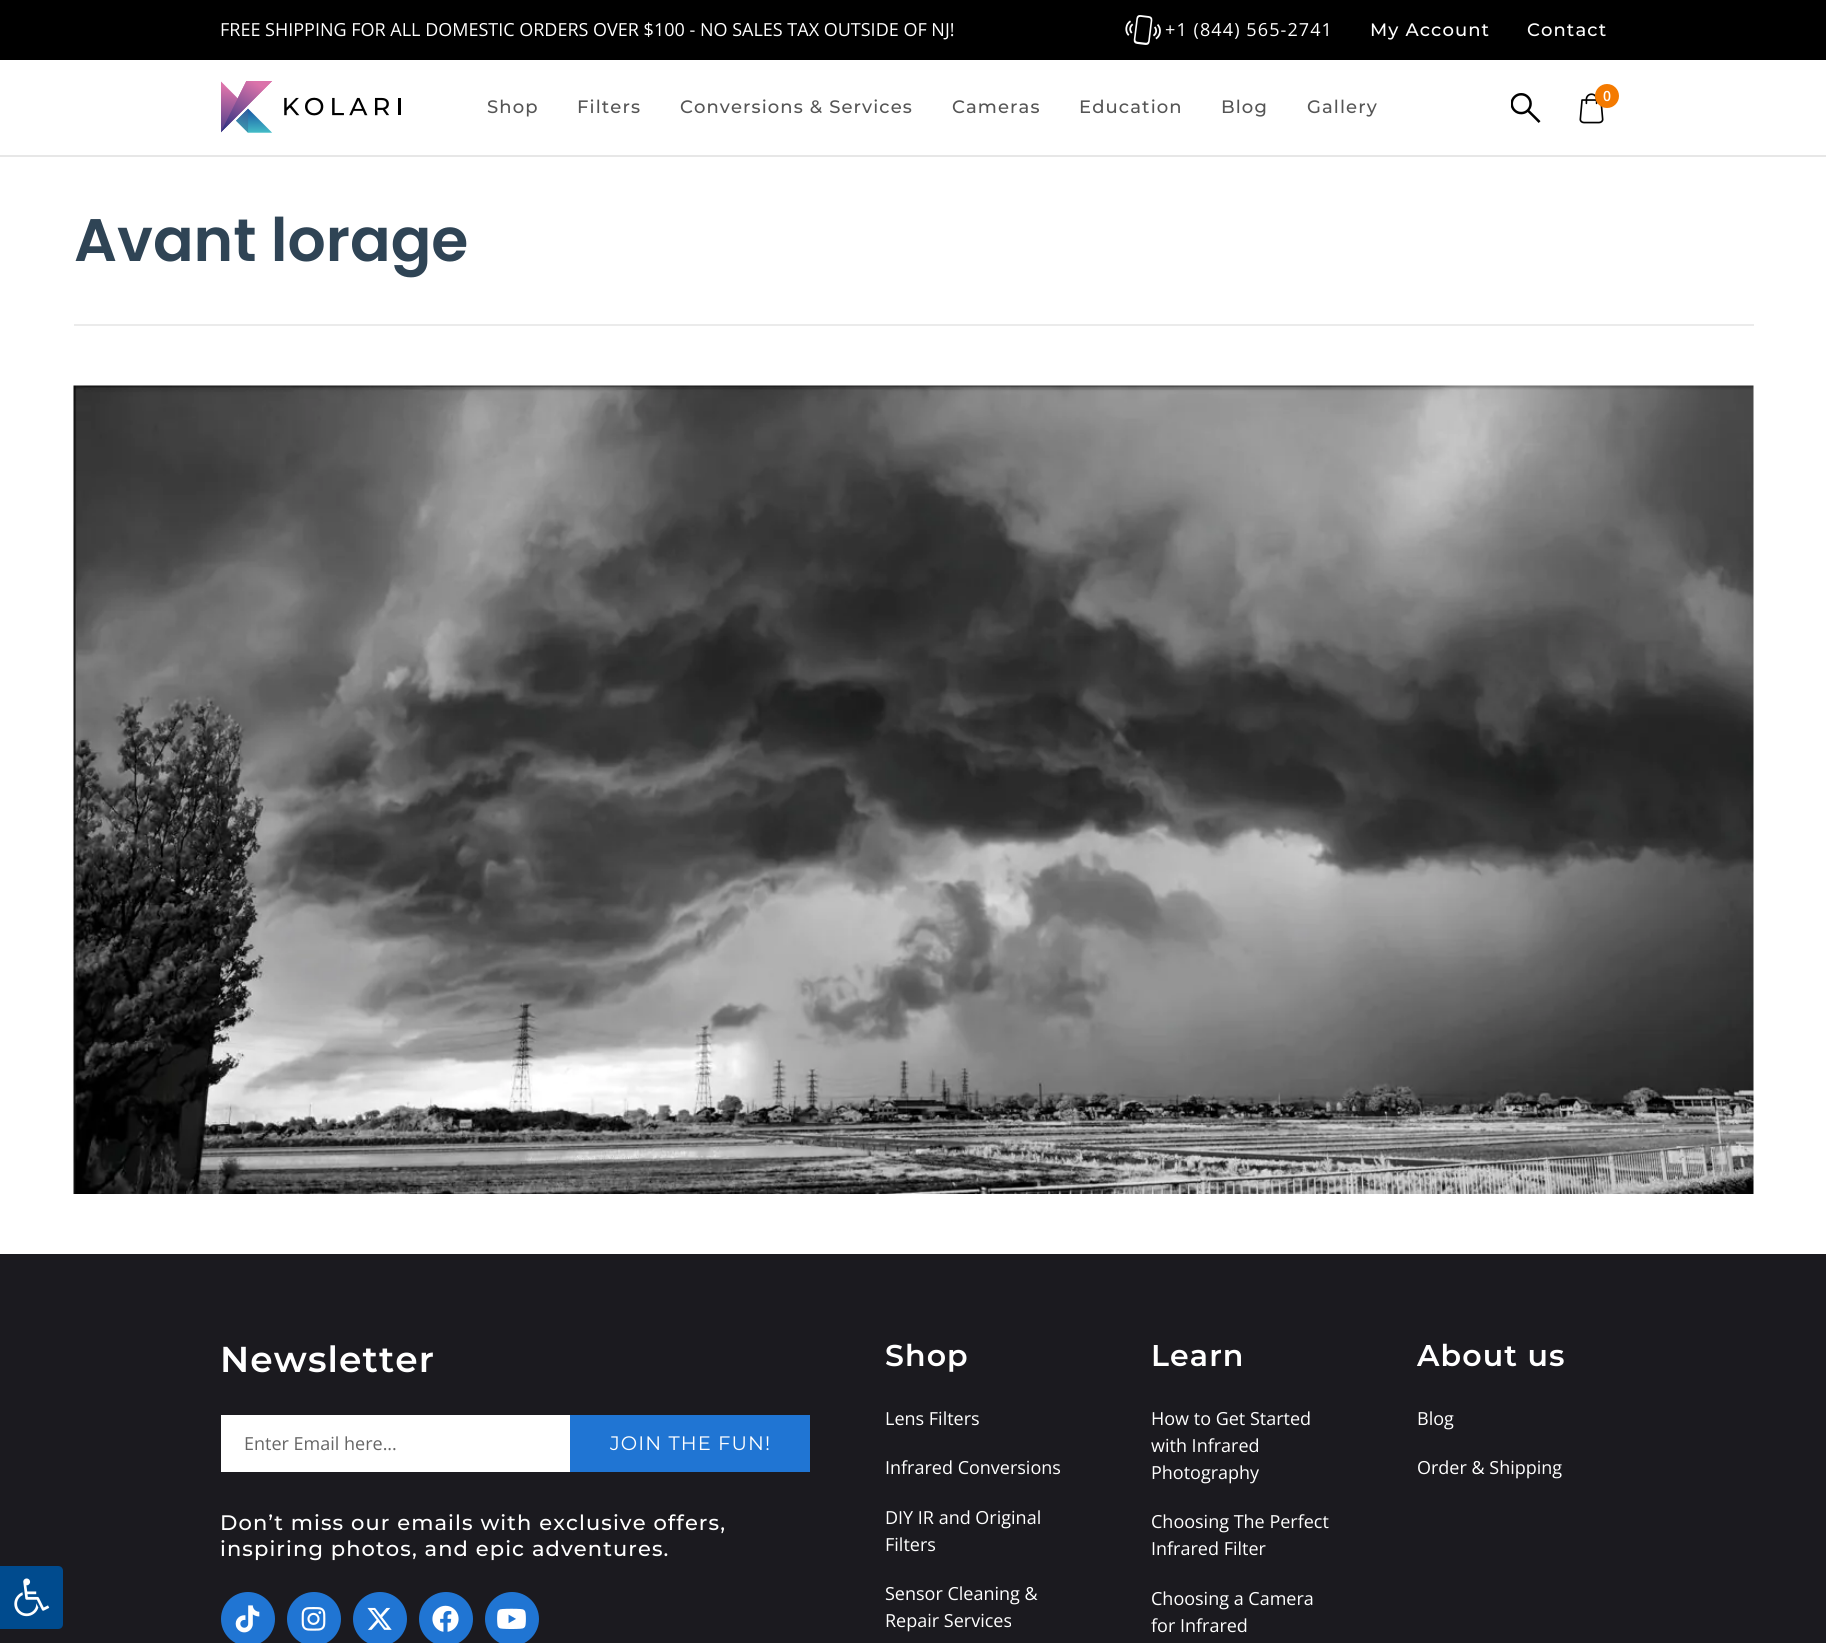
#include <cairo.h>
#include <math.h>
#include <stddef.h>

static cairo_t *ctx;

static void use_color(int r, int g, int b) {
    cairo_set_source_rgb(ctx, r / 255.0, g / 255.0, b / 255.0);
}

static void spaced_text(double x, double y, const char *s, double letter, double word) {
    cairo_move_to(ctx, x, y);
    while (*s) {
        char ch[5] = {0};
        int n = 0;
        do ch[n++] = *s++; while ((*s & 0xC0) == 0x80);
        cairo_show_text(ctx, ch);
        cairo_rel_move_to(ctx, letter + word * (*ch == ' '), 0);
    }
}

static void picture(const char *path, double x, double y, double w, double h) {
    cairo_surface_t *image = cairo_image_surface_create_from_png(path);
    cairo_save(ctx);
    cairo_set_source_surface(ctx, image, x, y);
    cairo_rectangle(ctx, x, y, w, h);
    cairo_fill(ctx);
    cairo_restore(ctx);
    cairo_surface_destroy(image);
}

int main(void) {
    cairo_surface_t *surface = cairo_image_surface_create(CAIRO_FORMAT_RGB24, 1826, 1643);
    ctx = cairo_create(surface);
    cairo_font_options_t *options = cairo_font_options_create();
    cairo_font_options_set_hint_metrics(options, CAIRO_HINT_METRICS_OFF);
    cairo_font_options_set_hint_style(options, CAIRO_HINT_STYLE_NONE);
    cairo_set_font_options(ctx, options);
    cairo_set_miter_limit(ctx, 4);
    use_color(255, 255, 255);
    cairo_paint(ctx);
    use_color(0, 0, 0);
    cairo_rectangle(ctx, 0, 0, 1826, 60);
    cairo_fill(ctx);
    cairo_select_font_face(ctx, "Open Sans", CAIRO_FONT_SLANT_NORMAL, CAIRO_FONT_WEIGHT_NORMAL);
    cairo_set_font_size(ctx, 18);
    use_color(255, 255, 255);
    cairo_move_to(ctx, 220, 36);
    cairo_show_text(ctx, "FREE SHIPPING FOR ALL DOMESTIC ORDERS OVER $100 - NO SALES TAX OUTSIDE OF NJ!");
    picture("img1.png", 1125, 15, 36, 30);
    spaced_text(1165, 36, "+1 (844) 565-2741", 1.1, 0);
    cairo_select_font_face(ctx, "Montserrat Medium", CAIRO_FONT_SLANT_NORMAL, CAIRO_FONT_WEIGHT_NORMAL);
    spaced_text(1370, 36, "My Account", 1.1, 0);
    spaced_text(1527, 36, "Contact", 1.1, 0);
    use_color(231, 231, 231);
    cairo_rectangle(ctx, 0, 155, 1826, 2);
    cairo_fill(ctx);
    picture("img2.png", 221, 81, 180, 52);
    use_color(85, 85, 85);
    spaced_text(487, 113, "Shop", 1.1, 0);
    spaced_text(577, 113, "Filters", 1.1, 0);
    spaced_text(680, 113, "Conversions & Services", 1.1, 0);
    spaced_text(952, 113, "Cameras", 1.1, 0);
    spaced_text(1079, 113, "Education", 1.1, 0);
    spaced_text(1221, 113, "Blog", 1.1, 0);
    spaced_text(1307, 113, "Gallery", 1.1, 0);
    picture("img3.png", 1511, 93, 30, 30);
    picture("img4.png", 1579, 93, 25, 31);
    use_color(244, 122, 0);
    cairo_arc(ctx, 1607, 96, 12, 0, 2 * M_PI);
    cairo_fill(ctx);
    cairo_select_font_face(ctx, "Open Sans SemiBold", CAIRO_FONT_SLANT_NORMAL, CAIRO_FONT_WEIGHT_NORMAL);
    cairo_set_font_size(ctx, 14);
    use_color(255, 255, 255);
    cairo_move_to(ctx, 1603, 101);
    cairo_show_text(ctx, "0");
    use_color(235, 235, 235);
    cairo_rectangle(ctx, 74, 324, 1680, 2);
    cairo_fill(ctx);
    cairo_select_font_face(ctx, "Poppins SemiBold", CAIRO_FONT_SLANT_NORMAL, CAIRO_FONT_WEIGHT_NORMAL);
    cairo_set_font_size(ctx, 60);
    use_color(47, 68, 85);
    cairo_move_to(ctx, 74, 261);
    cairo_show_text(ctx, "Avant lorage");
    picture("img5.png", 73, 385, 1681, 809);
    use_color(27, 26, 31);
    cairo_rectangle(ctx, 0, 1254, 1826, 389);
    cairo_fill(ctx);
    use_color(0, 75, 142);
    cairo_new_path(ctx);
    cairo_move_to(ctx, 0, 1566);
    cairo_line_to(ctx, 58, 1566);
    cairo_curve_to(ctx, 61, 1566, 63, 1568, 63, 1571);
    cairo_line_to(ctx, 63, 1624);
    cairo_curve_to(ctx, 63, 1627, 61, 1629, 58, 1629);
    cairo_line_to(ctx, 0, 1629);
    cairo_close_path(ctx);
    cairo_fill(ctx);
    picture("img6.png", 14, 1578, 36, 39);
    cairo_select_font_face(ctx, "Montserrat SemiBold", CAIRO_FONT_SLANT_NORMAL, CAIRO_FONT_WEIGHT_NORMAL);
    cairo_set_font_size(ctx, 36);
    use_color(255, 255, 255);
    spaced_text(220, 1372, "Newsletter", 1.1, 0);
    cairo_rectangle(ctx, 221, 1415, 349, 57);
    cairo_fill(ctx);
    cairo_select_font_face(ctx, "Open Sans", CAIRO_FONT_SLANT_NORMAL, CAIRO_FONT_WEIGHT_NORMAL);
    cairo_set_font_size(ctx, 18);
    use_color(102, 102, 102);
    cairo_move_to(ctx, 244, 1450);
    cairo_show_text(ctx, "Enter Email here...");
    use_color(32, 117, 211);
    cairo_rectangle(ctx, 570, 1415, 240, 57);
    cairo_fill(ctx);
    cairo_select_font_face(ctx, "Montserrat", CAIRO_FONT_SLANT_NORMAL, CAIRO_FONT_WEIGHT_NORMAL);
    cairo_set_font_size(ctx, 19.5);
    use_color(255, 255, 255);
    spaced_text(610, 1450, "JOIN THE FUN!", 1.1, 0);
    cairo_select_font_face(ctx, "Montserrat Medium", CAIRO_FONT_SLANT_NORMAL, CAIRO_FONT_WEIGHT_NORMAL);
    cairo_set_font_size(ctx, 21);
    spaced_text(220, 1530, "Don’t miss our emails with exclusive offers,", 1.1, 0);
    spaced_text(220, 1556, "inspiring photos, and epic adventures.", 1.1, 0);
    use_color(32, 117, 211);
    cairo_new_path(ctx);
    cairo_arc(ctx, 248, 1619, 27, 0, 2 * M_PI);
    cairo_fill(ctx);
    picture("img7.png", 235, 1605, 25, 28);
    cairo_arc(ctx, 314, 1619, 27, 0, 2 * M_PI);
    cairo_fill(ctx);
    picture("img8.png", 301, 1607, 25, 24);
    cairo_arc(ctx, 380, 1619, 27, 0, 2 * M_PI);
    cairo_fill(ctx);
    picture("img9.png", 367, 1607, 25, 23);
    cairo_arc(ctx, 446, 1619, 27, 0, 2 * M_PI);
    cairo_fill(ctx);
    picture("img10.png", 432, 1605, 27, 27);
    cairo_arc(ctx, 512, 1619, 27, 0, 2 * M_PI);
    cairo_fill(ctx);
    picture("img11.png", 497, 1608, 29, 21);
    cairo_select_font_face(ctx, "Montserrat SemiBold", CAIRO_FONT_SLANT_NORMAL, CAIRO_FONT_WEIGHT_NORMAL);
    cairo_set_font_size(ctx, 30);
    use_color(255, 255, 255);
    spaced_text(885, 1366, "Shop", 1.1, 0);
    cairo_select_font_face(ctx, "Open Sans", CAIRO_FONT_SLANT_NORMAL, CAIRO_FONT_WEIGHT_NORMAL);
    cairo_set_font_size(ctx, 18);
    cairo_move_to(ctx, 885, 1425);
    cairo_show_text(ctx, "Lens Filters");
    cairo_move_to(ctx, 885, 1474);
    cairo_show_text(ctx, "Infrared Conversions");
    cairo_move_to(ctx, 885, 1524);
    cairo_show_text(ctx, "DIY IR and Original");
    cairo_move_to(ctx, 885, 1551);
    cairo_show_text(ctx, "Filters");
    cairo_move_to(ctx, 885, 1600);
    cairo_show_text(ctx, "Sensor Cleaning &");
    cairo_move_to(ctx, 885, 1627);
    cairo_show_text(ctx, "Repair Services");
    cairo_select_font_face(ctx, "Montserrat SemiBold", CAIRO_FONT_SLANT_NORMAL, CAIRO_FONT_WEIGHT_NORMAL);
    cairo_set_font_size(ctx, 30);
    spaced_text(1151, 1366, "Learn", 1.1, 0);
    cairo_select_font_face(ctx, "Open Sans", CAIRO_FONT_SLANT_NORMAL, CAIRO_FONT_WEIGHT_NORMAL);
    cairo_set_font_size(ctx, 18);
    cairo_move_to(ctx, 1151, 1425);
    cairo_show_text(ctx, "How to Get Started");
    cairo_move_to(ctx, 1151, 1452);
    cairo_show_text(ctx, "with Infrared");
    cairo_move_to(ctx, 1151, 1479);
    cairo_show_text(ctx, "Photography");
    cairo_move_to(ctx, 1151, 1528);
    cairo_show_text(ctx, "Choosing The Perfect");
    cairo_move_to(ctx, 1151, 1555);
    cairo_show_text(ctx, "Infrared Filter");
    cairo_move_to(ctx, 1151, 1605);
    cairo_show_text(ctx, "Choosing a Camera");
    cairo_move_to(ctx, 1151, 1632);
    cairo_show_text(ctx, "for Infrared");
    cairo_select_font_face(ctx, "Montserrat SemiBold", CAIRO_FONT_SLANT_NORMAL, CAIRO_FONT_WEIGHT_NORMAL);
    cairo_set_font_size(ctx, 30);
    spaced_text(1417, 1366, "About us", 1.1, 0);
    cairo_select_font_face(ctx, "Open Sans", CAIRO_FONT_SLANT_NORMAL, CAIRO_FONT_WEIGHT_NORMAL);
    cairo_set_font_size(ctx, 18);
    cairo_move_to(ctx, 1417, 1425);
    cairo_show_text(ctx, "Blog");
    cairo_move_to(ctx, 1417, 1474);
    cairo_show_text(ctx, "Order & Shipping");
    cairo_surface_write_to_png(surface, "result.png");
    cairo_font_options_destroy(options);
    cairo_destroy(ctx);
    cairo_surface_destroy(surface);
    return 0;
}
